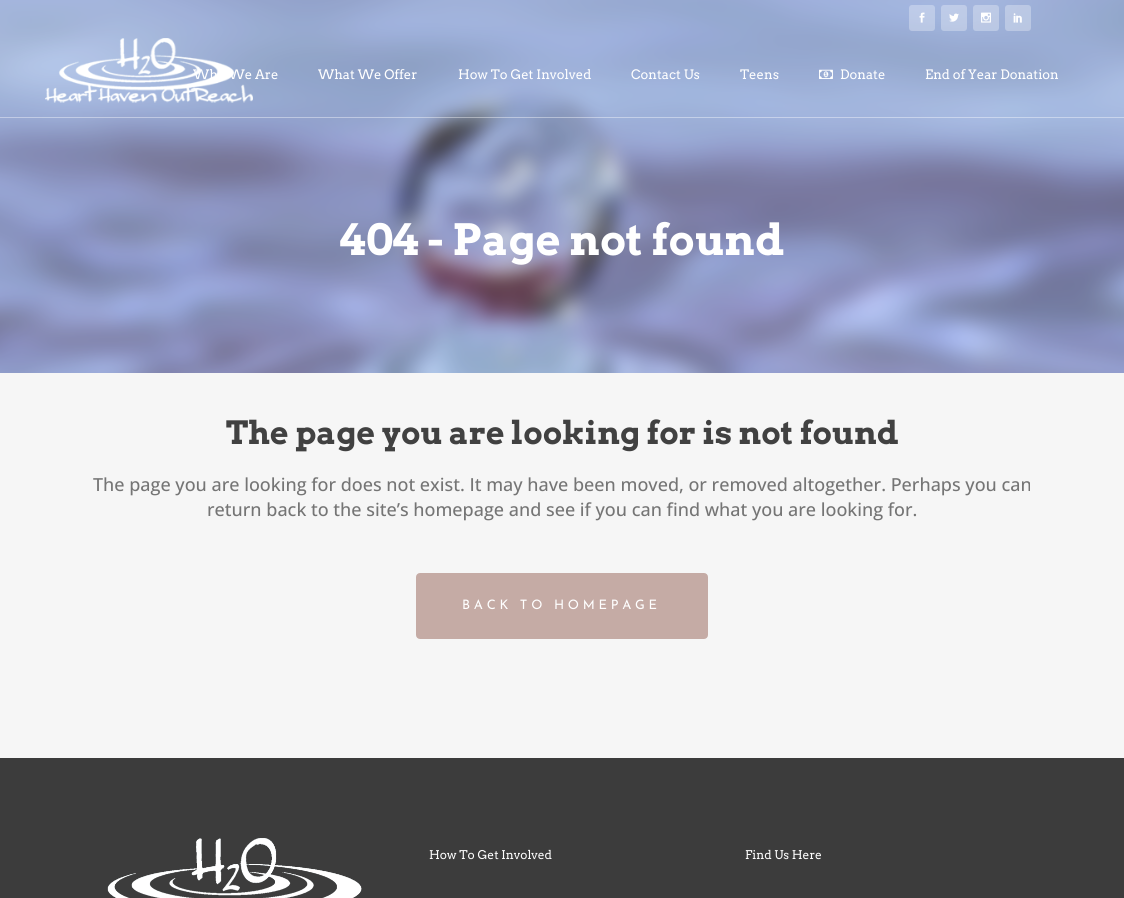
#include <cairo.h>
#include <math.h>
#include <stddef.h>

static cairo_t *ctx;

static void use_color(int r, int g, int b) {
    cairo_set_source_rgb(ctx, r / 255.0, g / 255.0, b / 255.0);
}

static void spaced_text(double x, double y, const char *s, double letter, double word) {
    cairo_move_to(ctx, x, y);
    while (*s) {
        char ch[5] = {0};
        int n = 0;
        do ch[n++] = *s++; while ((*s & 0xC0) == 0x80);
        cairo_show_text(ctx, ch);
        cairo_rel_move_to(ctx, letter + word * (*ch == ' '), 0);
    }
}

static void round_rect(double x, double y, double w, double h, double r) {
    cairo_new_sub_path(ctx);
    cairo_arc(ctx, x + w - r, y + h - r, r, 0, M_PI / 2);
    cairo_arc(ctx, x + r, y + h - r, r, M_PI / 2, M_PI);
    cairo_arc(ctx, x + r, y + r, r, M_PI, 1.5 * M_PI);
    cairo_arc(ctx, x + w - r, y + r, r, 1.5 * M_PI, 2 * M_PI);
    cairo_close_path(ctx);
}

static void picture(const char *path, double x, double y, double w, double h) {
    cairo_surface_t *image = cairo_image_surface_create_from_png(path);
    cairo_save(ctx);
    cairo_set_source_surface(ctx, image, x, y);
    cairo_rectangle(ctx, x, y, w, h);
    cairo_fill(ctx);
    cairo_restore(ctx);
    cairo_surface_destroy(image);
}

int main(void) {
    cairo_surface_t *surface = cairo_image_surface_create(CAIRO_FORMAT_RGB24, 1124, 898);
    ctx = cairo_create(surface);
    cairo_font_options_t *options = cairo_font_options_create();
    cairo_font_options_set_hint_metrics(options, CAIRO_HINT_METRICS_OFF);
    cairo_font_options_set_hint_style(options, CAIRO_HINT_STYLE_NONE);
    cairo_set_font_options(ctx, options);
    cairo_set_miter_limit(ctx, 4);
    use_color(246, 246, 246);
    cairo_paint(ctx);
    picture("img7.png", 0, 0, 1124, 373);
    cairo_set_source_rgba(ctx, 1, 1, 1, 0.3);
    round_rect(909, 5, 26, 26, 3);
    cairo_fill(ctx);
    picture("img1.png", 919, 12, 6, 11);
    round_rect(941, 5, 26, 26, 3);
    cairo_fill(ctx);
    picture("img2.png", 949, 13, 10, 9);
    round_rect(973, 5, 26, 26, 3);
    cairo_fill(ctx);
    picture("img3.png", 981, 12, 10, 11);
    round_rect(1005, 5, 26, 26, 3);
    cairo_fill(ctx);
    picture("img4.png", 1013, 13, 9, 10);
    cairo_set_source_rgba(ctx, 1, 1, 1, 0.4);
    cairo_rectangle(ctx, 0, 117, 1124, 1);
    cairo_fill(ctx);
    picture("img5.png", 45, 38, 208, 65);
    cairo_select_font_face(ctx, "Arvo", CAIRO_FONT_SLANT_NORMAL, CAIRO_FONT_WEIGHT_NORMAL);
    cairo_set_font_size(ctx, 13);
    use_color(255, 255, 255);
    cairo_move_to(ctx, 193, 79);
    cairo_show_text(ctx, "Who We Are");
    cairo_move_to(ctx, 318, 79);
    cairo_show_text(ctx, "What We Offer");
    cairo_move_to(ctx, 458, 79);
    cairo_show_text(ctx, "How To Get Involved");
    cairo_move_to(ctx, 631, 79);
    cairo_show_text(ctx, "Contact Us");
    cairo_move_to(ctx, 740, 79);
    cairo_show_text(ctx, "Teens");
    picture("img6.png", 819, 69, 14, 10);
    cairo_move_to(ctx, 840, 79);
    cairo_show_text(ctx, "Donate");
    cairo_move_to(ctx, 925, 79);
    cairo_show_text(ctx, "End of Year Donation");
    cairo_select_font_face(ctx, "Arvo", CAIRO_FONT_SLANT_NORMAL, CAIRO_FONT_WEIGHT_BOLD);
    cairo_set_font_size(ctx, 43);
    cairo_move_to(ctx, 340, 255);
    cairo_show_text(ctx, "404 - Page not found");
    cairo_set_font_size(ctx, 32);
    use_color(65, 65, 65);
    cairo_move_to(ctx, 226, 444);
    cairo_show_text(ctx, "The page you are looking for is not found");
    cairo_select_font_face(ctx, "Open Sans Medium", CAIRO_FONT_SLANT_NORMAL, CAIRO_FONT_WEIGHT_NORMAL);
    cairo_set_font_size(ctx, 18);
    use_color(117, 117, 117);
    cairo_move_to(ctx, 93, 491);
    cairo_show_text(ctx, "The page you are looking for does not exist. It may have been moved, or removed altogether. Perhaps you can");
    cairo_move_to(ctx, 207, 516);
    cairo_show_text(ctx, "return back to the site’s homepage and see if you can find what you are looking for.");
    use_color(197, 171, 165);
    round_rect(417, 574, 290, 64, 3);
    cairo_fill_preserve(ctx);
    cairo_stroke(ctx);
    cairo_select_font_face(ctx, "Josefin Sans", CAIRO_FONT_SLANT_NORMAL, CAIRO_FONT_WEIGHT_NORMAL);
    cairo_set_font_size(ctx, 13);
    use_color(255, 255, 255);
    spaced_text(462, 609, "BACK TO HOMEPAGE", 3.75, 0);
    use_color(60, 60, 60);
    cairo_rectangle(ctx, 0, 758, 1124, 140);
    cairo_fill(ctx);
    picture("img8.png", 107, 838, 255, 60);
    cairo_select_font_face(ctx, "Arvo", CAIRO_FONT_SLANT_NORMAL, CAIRO_FONT_WEIGHT_NORMAL);
    cairo_set_font_size(ctx, 12);
    use_color(255, 255, 255);
    cairo_move_to(ctx, 429, 859);
    cairo_show_text(ctx, "How To Get Involved");
    cairo_move_to(ctx, 745, 859);
    cairo_show_text(ctx, "Find Us Here");
    cairo_surface_write_to_png(surface, "result.png");
    cairo_font_options_destroy(options);
    cairo_destroy(ctx);
    cairo_surface_destroy(surface);
    return 0;
}
